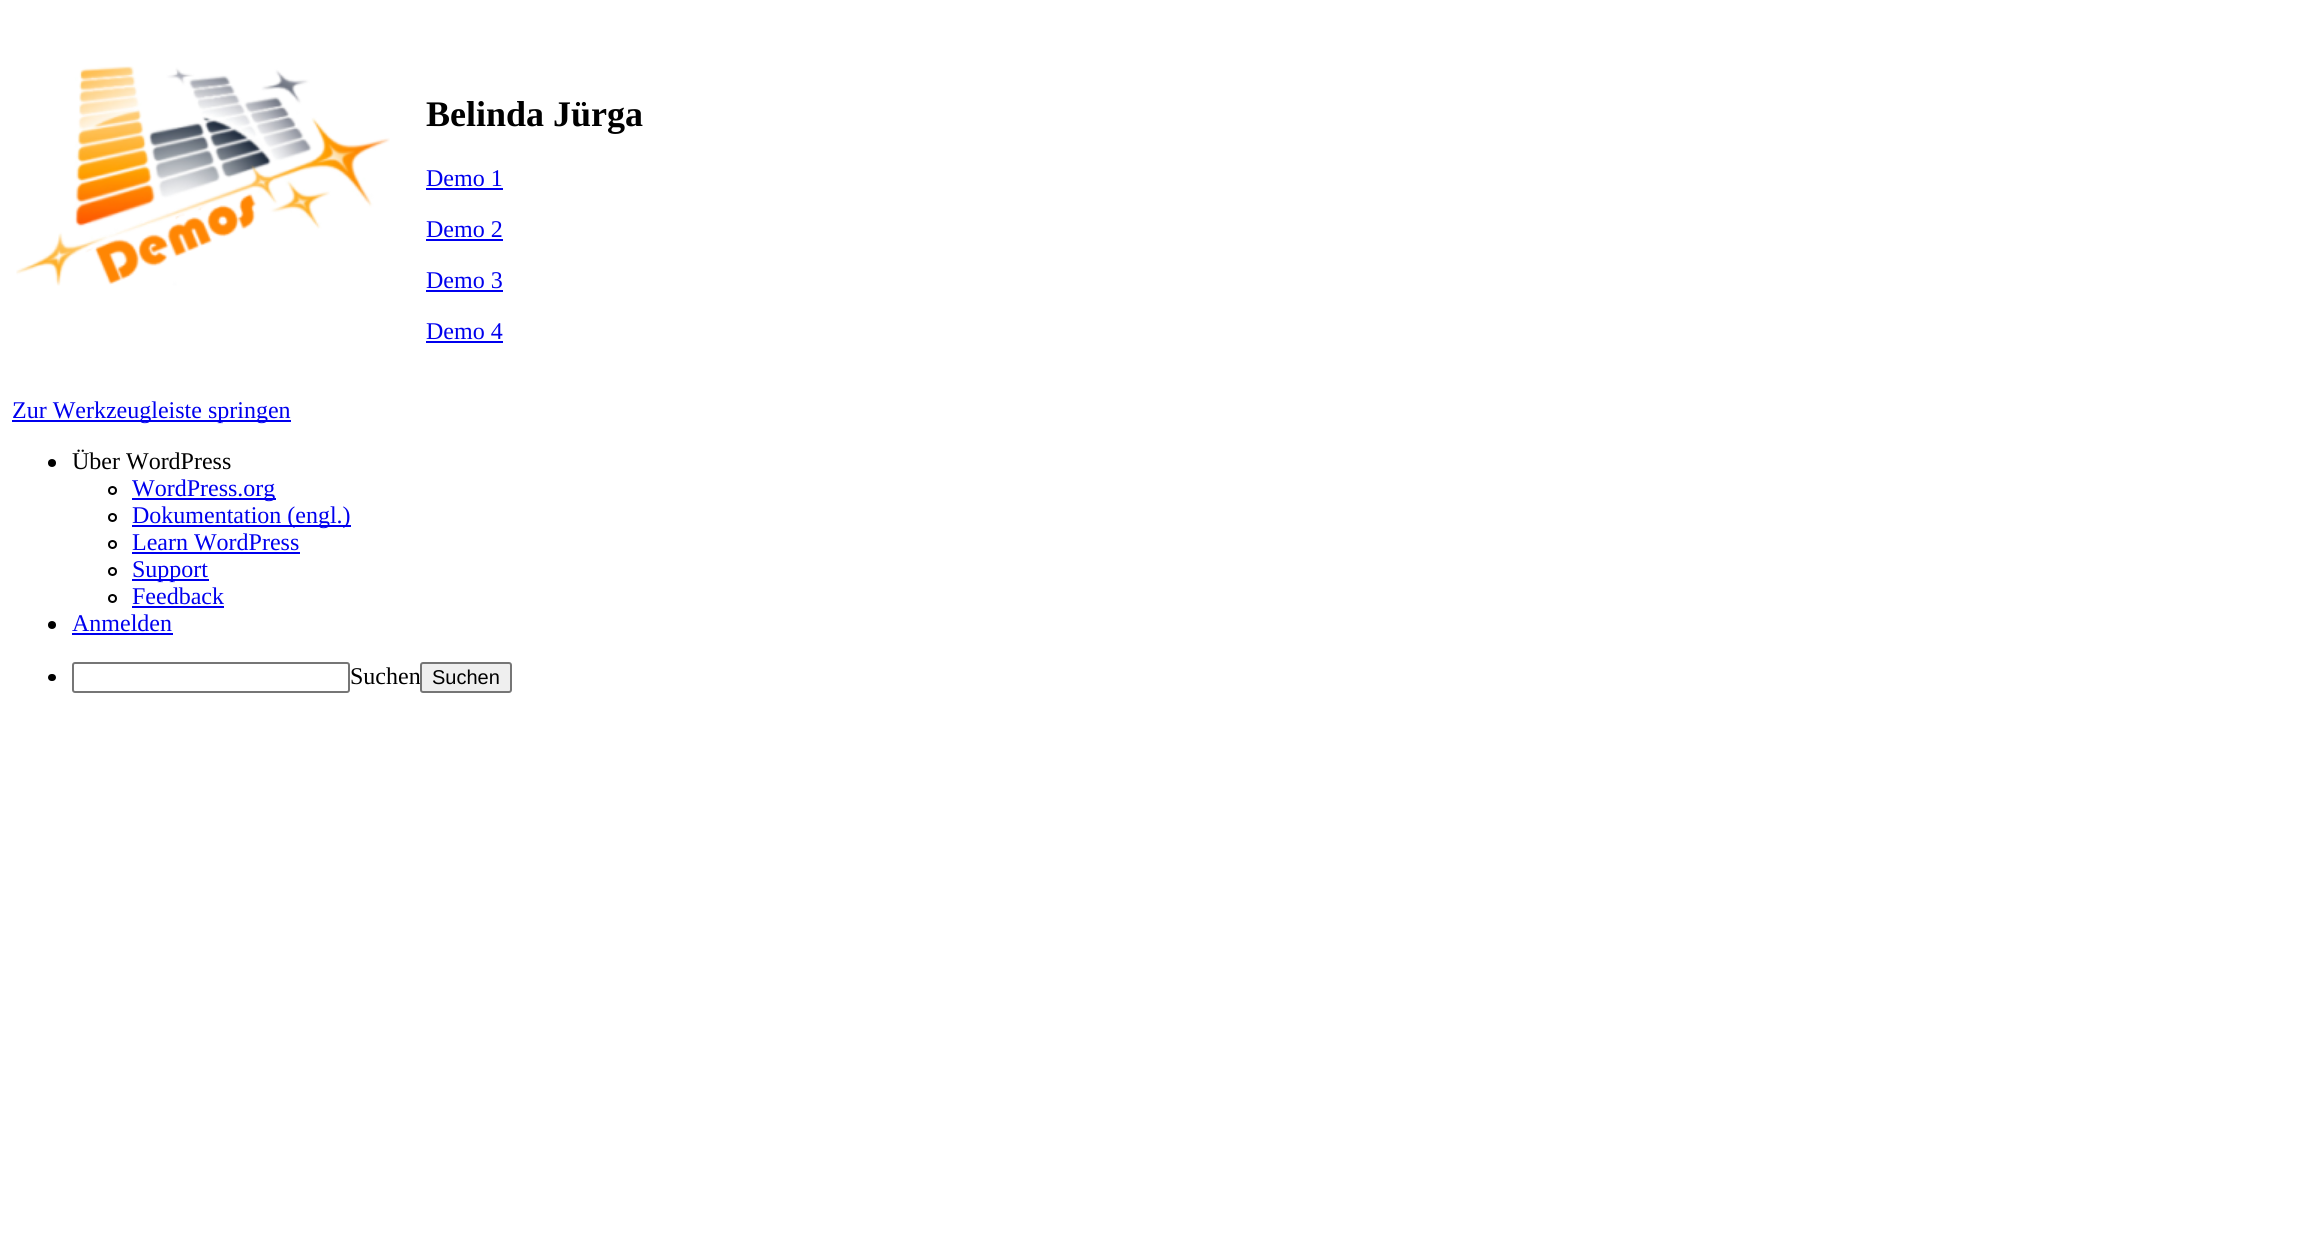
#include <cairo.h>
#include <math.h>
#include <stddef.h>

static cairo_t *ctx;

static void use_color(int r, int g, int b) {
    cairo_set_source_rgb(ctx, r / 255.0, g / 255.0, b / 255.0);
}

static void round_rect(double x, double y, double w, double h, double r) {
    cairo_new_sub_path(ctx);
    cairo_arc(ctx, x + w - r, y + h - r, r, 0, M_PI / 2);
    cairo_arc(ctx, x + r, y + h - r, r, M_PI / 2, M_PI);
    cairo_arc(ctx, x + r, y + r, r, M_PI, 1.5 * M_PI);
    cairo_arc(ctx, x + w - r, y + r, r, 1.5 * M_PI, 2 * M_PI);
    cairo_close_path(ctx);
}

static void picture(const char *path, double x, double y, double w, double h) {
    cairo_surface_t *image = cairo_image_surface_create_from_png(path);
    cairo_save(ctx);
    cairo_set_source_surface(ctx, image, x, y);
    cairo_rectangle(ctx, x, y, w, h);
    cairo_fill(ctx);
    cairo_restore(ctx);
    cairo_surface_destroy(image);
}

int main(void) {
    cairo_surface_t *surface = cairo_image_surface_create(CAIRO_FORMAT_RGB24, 2324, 1254);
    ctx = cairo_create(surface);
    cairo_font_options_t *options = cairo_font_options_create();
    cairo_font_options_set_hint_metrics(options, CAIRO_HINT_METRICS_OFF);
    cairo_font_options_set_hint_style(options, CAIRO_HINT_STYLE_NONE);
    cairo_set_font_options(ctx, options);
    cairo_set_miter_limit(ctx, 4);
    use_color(255, 255, 255);
    cairo_paint(ctx);
    picture("img1.png", 16, 66, 374, 220);
    cairo_select_font_face(ctx, "Liberation Serif", CAIRO_FONT_SLANT_NORMAL, CAIRO_FONT_WEIGHT_BOLD);
    cairo_set_font_size(ctx, 36);
    use_color(0, 0, 0);
    cairo_move_to(ctx, 426, 126);
    cairo_show_text(ctx, "Belinda Jürga");
    cairo_select_font_face(ctx, "Liberation Serif", CAIRO_FONT_SLANT_NORMAL, CAIRO_FONT_WEIGHT_NORMAL);
    cairo_set_font_size(ctx, 24);
    use_color(0, 0, 238);
    cairo_move_to(ctx, 426, 186);
    cairo_show_text(ctx, "Demo 1");
    cairo_rectangle(ctx, 426, 188, 77, 2);
    cairo_fill(ctx);
    cairo_move_to(ctx, 426, 237);
    cairo_show_text(ctx, "Demo 2");
    cairo_rectangle(ctx, 426, 239, 77, 2);
    cairo_fill(ctx);
    cairo_move_to(ctx, 426, 288);
    cairo_show_text(ctx, "Demo 3");
    cairo_rectangle(ctx, 426, 290, 77, 2);
    cairo_fill(ctx);
    cairo_move_to(ctx, 426, 339);
    cairo_show_text(ctx, "Demo 4");
    cairo_rectangle(ctx, 426, 341, 77, 2);
    cairo_fill(ctx);
    cairo_rectangle(ctx, 12, 420, 279, 2);
    cairo_fill(ctx);
    cairo_move_to(ctx, 12, 418);
    cairo_show_text(ctx, "Zur Werkzeugleiste springen");
    use_color(0, 0, 0);
    cairo_new_path(ctx);
    cairo_arc(ctx, 52, 463, 4, 0, 2 * M_PI);
    cairo_fill(ctx);
    cairo_move_to(ctx, 72, 469);
    cairo_show_text(ctx, "Über WordPress");
    cairo_new_path(ctx);
    cairo_arc(ctx, 112.5, 490.5, 3.5, 0, 2 * M_PI);
    cairo_stroke(ctx);
    use_color(0, 0, 238);
    cairo_rectangle(ctx, 132, 498, 144, 2);
    cairo_fill(ctx);
    cairo_move_to(ctx, 132, 496);
    cairo_show_text(ctx, "WordPress.org");
    cairo_new_path(ctx);
    cairo_arc(ctx, 112.5, 517.5, 3.5, 0, 2 * M_PI);
    use_color(0, 0, 0);
    cairo_stroke(ctx);
    use_color(0, 0, 238);
    cairo_rectangle(ctx, 132, 525, 219, 2);
    cairo_fill(ctx);
    cairo_move_to(ctx, 132, 523);
    cairo_show_text(ctx, "Dokumentation (engl.)");
    cairo_new_path(ctx);
    cairo_arc(ctx, 112.5, 544.5, 3.5, 0, 2 * M_PI);
    use_color(0, 0, 0);
    cairo_stroke(ctx);
    use_color(0, 0, 238);
    cairo_move_to(ctx, 132, 550);
    cairo_show_text(ctx, "Learn WordPress");
    cairo_rectangle(ctx, 132, 552, 168, 2);
    cairo_fill(ctx);
    cairo_arc(ctx, 112.5, 571.5, 3.5, 0, 2 * M_PI);
    use_color(0, 0, 0);
    cairo_stroke(ctx);
    use_color(0, 0, 238);
    cairo_rectangle(ctx, 132, 579, 77, 2);
    cairo_fill(ctx);
    cairo_move_to(ctx, 132, 577);
    cairo_show_text(ctx, "Support");
    cairo_new_path(ctx);
    cairo_arc(ctx, 112.5, 598.5, 3.5, 0, 2 * M_PI);
    use_color(0, 0, 0);
    cairo_stroke(ctx);
    use_color(0, 0, 238);
    cairo_move_to(ctx, 132, 604);
    cairo_show_text(ctx, "Feedback");
    cairo_rectangle(ctx, 132, 606, 92, 2);
    cairo_fill(ctx);
    use_color(0, 0, 0);
    cairo_arc(ctx, 52, 625, 4, 0, 2 * M_PI);
    cairo_fill(ctx);
    use_color(0, 0, 238);
    cairo_move_to(ctx, 72, 631);
    cairo_show_text(ctx, "Anmelden");
    cairo_rectangle(ctx, 72, 633, 101, 2);
    cairo_fill(ctx);
    use_color(0, 0, 0);
    round_rect(48, 674, 8, 7, 3.5);
    cairo_fill(ctx);
    round_rect(73, 663, 276, 29, 2);
    use_color(118, 118, 118);
    cairo_stroke(ctx);
    use_color(0, 0, 0);
    cairo_move_to(ctx, 350, 684);
    cairo_show_text(ctx, "Suchen");
    use_color(239, 239, 239);
    round_rect(421, 663, 90, 29, 2);
    cairo_fill_preserve(ctx);
    use_color(118, 118, 118);
    cairo_stroke(ctx);
    cairo_select_font_face(ctx, "Liberation Sans", CAIRO_FONT_SLANT_NORMAL, CAIRO_FONT_WEIGHT_NORMAL);
    cairo_set_font_size(ctx, 20);
    use_color(0, 0, 0);
    cairo_move_to(ctx, 432, 684);
    cairo_show_text(ctx, "Suchen");
    cairo_surface_write_to_png(surface, "result.png");
    cairo_font_options_destroy(options);
    cairo_destroy(ctx);
    cairo_surface_destroy(surface);
    return 0;
}
